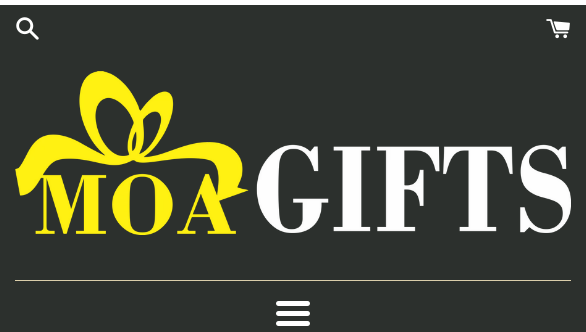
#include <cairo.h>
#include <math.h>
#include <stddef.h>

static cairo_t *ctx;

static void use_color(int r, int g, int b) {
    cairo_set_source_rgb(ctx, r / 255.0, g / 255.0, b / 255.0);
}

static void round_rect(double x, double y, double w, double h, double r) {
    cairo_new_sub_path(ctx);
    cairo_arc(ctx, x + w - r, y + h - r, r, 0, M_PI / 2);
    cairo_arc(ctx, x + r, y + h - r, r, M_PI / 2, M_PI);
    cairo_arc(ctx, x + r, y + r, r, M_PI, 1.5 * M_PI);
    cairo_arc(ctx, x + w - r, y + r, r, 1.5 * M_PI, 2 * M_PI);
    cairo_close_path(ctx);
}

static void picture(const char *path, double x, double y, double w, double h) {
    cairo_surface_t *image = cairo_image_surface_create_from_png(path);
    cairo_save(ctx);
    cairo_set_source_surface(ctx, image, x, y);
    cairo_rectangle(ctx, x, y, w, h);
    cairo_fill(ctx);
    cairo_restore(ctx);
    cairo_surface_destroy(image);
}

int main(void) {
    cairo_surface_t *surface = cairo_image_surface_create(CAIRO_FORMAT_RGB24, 586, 332);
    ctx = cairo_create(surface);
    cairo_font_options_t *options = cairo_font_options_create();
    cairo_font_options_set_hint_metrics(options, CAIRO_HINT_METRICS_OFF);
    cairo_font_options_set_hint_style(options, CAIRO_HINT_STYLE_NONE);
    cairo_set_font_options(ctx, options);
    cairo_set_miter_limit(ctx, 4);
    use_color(44, 48, 45);
    cairo_paint(ctx);
    use_color(255, 255, 255);
    cairo_rectangle(ctx, 0, 0, 586, 5);
    cairo_fill(ctx);
    picture("img1.png", 16, 17, 23, 23);
    picture("img2.png", 546, 19, 24, 20);
    picture("img3.png", 15, 71, 556, 164);
    use_color(219, 206, 170);
    cairo_rectangle(ctx, 15, 280, 556, 1);
    cairo_fill(ctx);
    use_color(255, 255, 255);
    round_rect(276, 301, 34, 5, 2.5);
    cairo_fill(ctx);
    round_rect(276, 311, 34, 5, 2.5);
    cairo_fill(ctx);
    round_rect(276, 321, 34, 5, 2.5);
    cairo_fill(ctx);
    cairo_surface_write_to_png(surface, "result.png");
    cairo_font_options_destroy(options);
    cairo_destroy(ctx);
    cairo_surface_destroy(surface);
    return 0;
}
